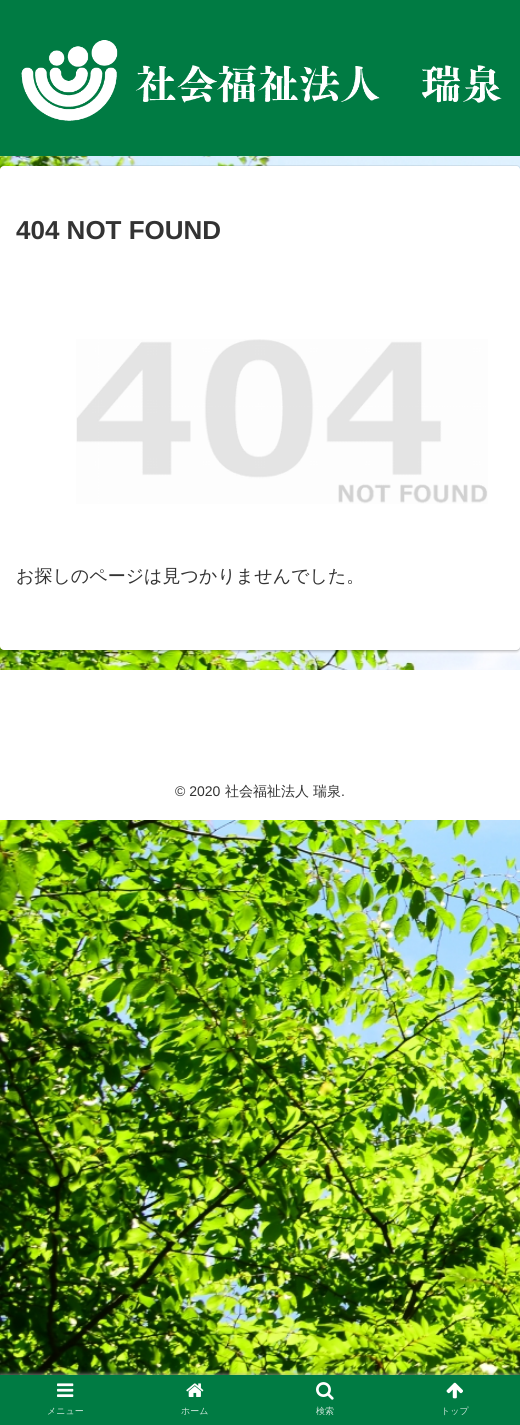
#include <cairo.h>
#include <math.h>
#include <stddef.h>

static cairo_t *ctx;

static void use_color(int r, int g, int b) {
    cairo_set_source_rgb(ctx, r / 255.0, g / 255.0, b / 255.0);
}

static void round_rect(double x, double y, double w, double h, double r) {
    cairo_new_sub_path(ctx);
    cairo_arc(ctx, x + w - r, y + h - r, r, 0, M_PI / 2);
    cairo_arc(ctx, x + r, y + h - r, r, M_PI / 2, M_PI);
    cairo_arc(ctx, x + r, y + r, r, M_PI, 1.5 * M_PI);
    cairo_arc(ctx, x + w - r, y + r, r, 1.5 * M_PI, 2 * M_PI);
    cairo_close_path(ctx);
}

static void shadow(double x, double y, double w, double h, double r, double blur, double alpha) {
    cairo_push_group_with_content(ctx, CAIRO_CONTENT_ALPHA);
    cairo_set_operator(ctx, CAIRO_OPERATOR_SOURCE);
    for (int i = 15; i >= -15 && fmin(w, h) + blur * i / 3 > 0; i -= 2) {
        double e = blur * i / 6;
        cairo_set_source_rgba(ctx, 0, 0, 0, alpha * erfc((i - 1) / 8.5) / 2);
        round_rect(x - e, y - e, w + 2 * e, h + 2 * e, fmax(0, fmin(r + e + blur * .6, fmin(w, h) / 2 + e)));
        cairo_fill(ctx);
    }
    cairo_pattern_t *soft = cairo_pop_group(ctx);
    cairo_mask(ctx, soft);
    cairo_pattern_destroy(soft);
}

static void picture(const char *path, double x, double y, double w, double h) {
    cairo_surface_t *image = cairo_image_surface_create_from_png(path);
    cairo_save(ctx);
    cairo_set_source_surface(ctx, image, x, y);
    cairo_rectangle(ctx, x, y, w, h);
    cairo_fill(ctx);
    cairo_restore(ctx);
    cairo_surface_destroy(image);
}

int main(void) {
    cairo_surface_t *surface = cairo_image_surface_create(CAIRO_FORMAT_RGB24, 520, 1425);
    ctx = cairo_create(surface);
    cairo_font_options_t *options = cairo_font_options_create();
    cairo_font_options_set_hint_metrics(options, CAIRO_HINT_METRICS_OFF);
    cairo_font_options_set_hint_style(options, CAIRO_HINT_STYLE_NONE);
    cairo_set_font_options(ctx, options);
    cairo_set_miter_limit(ctx, 4);
    use_color(255, 255, 255);
    cairo_paint(ctx);
    picture("img1.png", 0, 156, 520, 1219);
    use_color(0, 123, 67);
    cairo_rectangle(ctx, 0, 0, 520, 156);
    cairo_fill(ctx);
    picture("img2.png", 21, 40, 481, 81);
    round_rect(-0.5, 165.5, 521, 485, 4.5);
    cairo_set_source_rgba(ctx, 0, 0, 0, 0.08);
    cairo_set_line_width(ctx, 1);
    cairo_stroke(ctx);
    use_color(0, 0, 0);
    shadow(0, 168, 520, 484, 4, 1, 0.16);
    use_color(255, 255, 255);
    round_rect(0, 166, 520, 484, 4);
    cairo_fill(ctx);
    cairo_select_font_face(ctx, "Liberation Sans", CAIRO_FONT_SLANT_NORMAL, CAIRO_FONT_WEIGHT_BOLD);
    cairo_set_font_size(ctx, 26);
    use_color(51, 51, 51);
    cairo_move_to(ctx, 16, 239);
    cairo_show_text(ctx, "404 NOT FOUND");
    picture("img3.png", 76, 339, 412, 165);
    cairo_select_font_face(ctx, "WenQuanYi Zen Hei Medium", CAIRO_FONT_SLANT_NORMAL, CAIRO_FONT_WEIGHT_NORMAL);
    cairo_set_font_size(ctx, 18);
    cairo_move_to(ctx, 16, 582);
    cairo_show_text(ctx, "お探しのページは見つかりませんでした。");
    use_color(255, 255, 255);
    cairo_rectangle(ctx, 0, 670, 520, 150);
    cairo_fill(ctx);
    cairo_select_font_face(ctx, "Liberation Sans", CAIRO_FONT_SLANT_NORMAL, CAIRO_FONT_WEIGHT_NORMAL);
    cairo_set_font_size(ctx, 14);
    use_color(51, 51, 51);
    cairo_move_to(ctx, 175, 796);
    cairo_show_text(ctx, "© 2020");
    cairo_select_font_face(ctx, "WenQuanYi Zen Hei Medium", CAIRO_FONT_SLANT_NORMAL, CAIRO_FONT_WEIGHT_NORMAL);
    cairo_move_to(ctx, 225, 796);
    cairo_show_text(ctx, "社会福祉法人");
    cairo_move_to(ctx, 313, 796);
    cairo_show_text(ctx, "瑞泉");
    cairo_select_font_face(ctx, "Liberation Sans", CAIRO_FONT_SLANT_NORMAL, CAIRO_FONT_WEIGHT_NORMAL);
    cairo_move_to(ctx, 341, 796);
    cairo_show_text(ctx, ".");
    use_color(169, 169, 169);
    shadow(0, 1375, 520, 50, 0, 2.5, 1);
    use_color(0, 123, 67);
    cairo_rectangle(ctx, 0, 1375, 520, 50);
    cairo_fill(ctx);
    picture("img4.png", 57, 1383, 17, 14);
    cairo_select_font_face(ctx, "WenQuanYi Zen Hei Medium", CAIRO_FONT_SLANT_NORMAL, CAIRO_FONT_WEIGHT_NORMAL);
    cairo_set_font_size(ctx, 9);
    use_color(204, 229, 217);
    cairo_move_to(ctx, 47, 1414);
    cairo_show_text(ctx, "メニュー");
    picture("img5.png", 186, 1383, 18, 14);
    cairo_move_to(ctx, 181, 1414);
    cairo_show_text(ctx, "ホーム");
    picture("img6.png", 316, 1382, 18, 18);
    cairo_move_to(ctx, 316, 1414);
    cairo_show_text(ctx, "検索");
    picture("img7.png", 446, 1382, 17, 17);
    cairo_move_to(ctx, 441, 1414);
    cairo_show_text(ctx, "トップ");
    cairo_surface_write_to_png(surface, "result.png");
    cairo_font_options_destroy(options);
    cairo_destroy(ctx);
    cairo_surface_destroy(surface);
    return 0;
}
